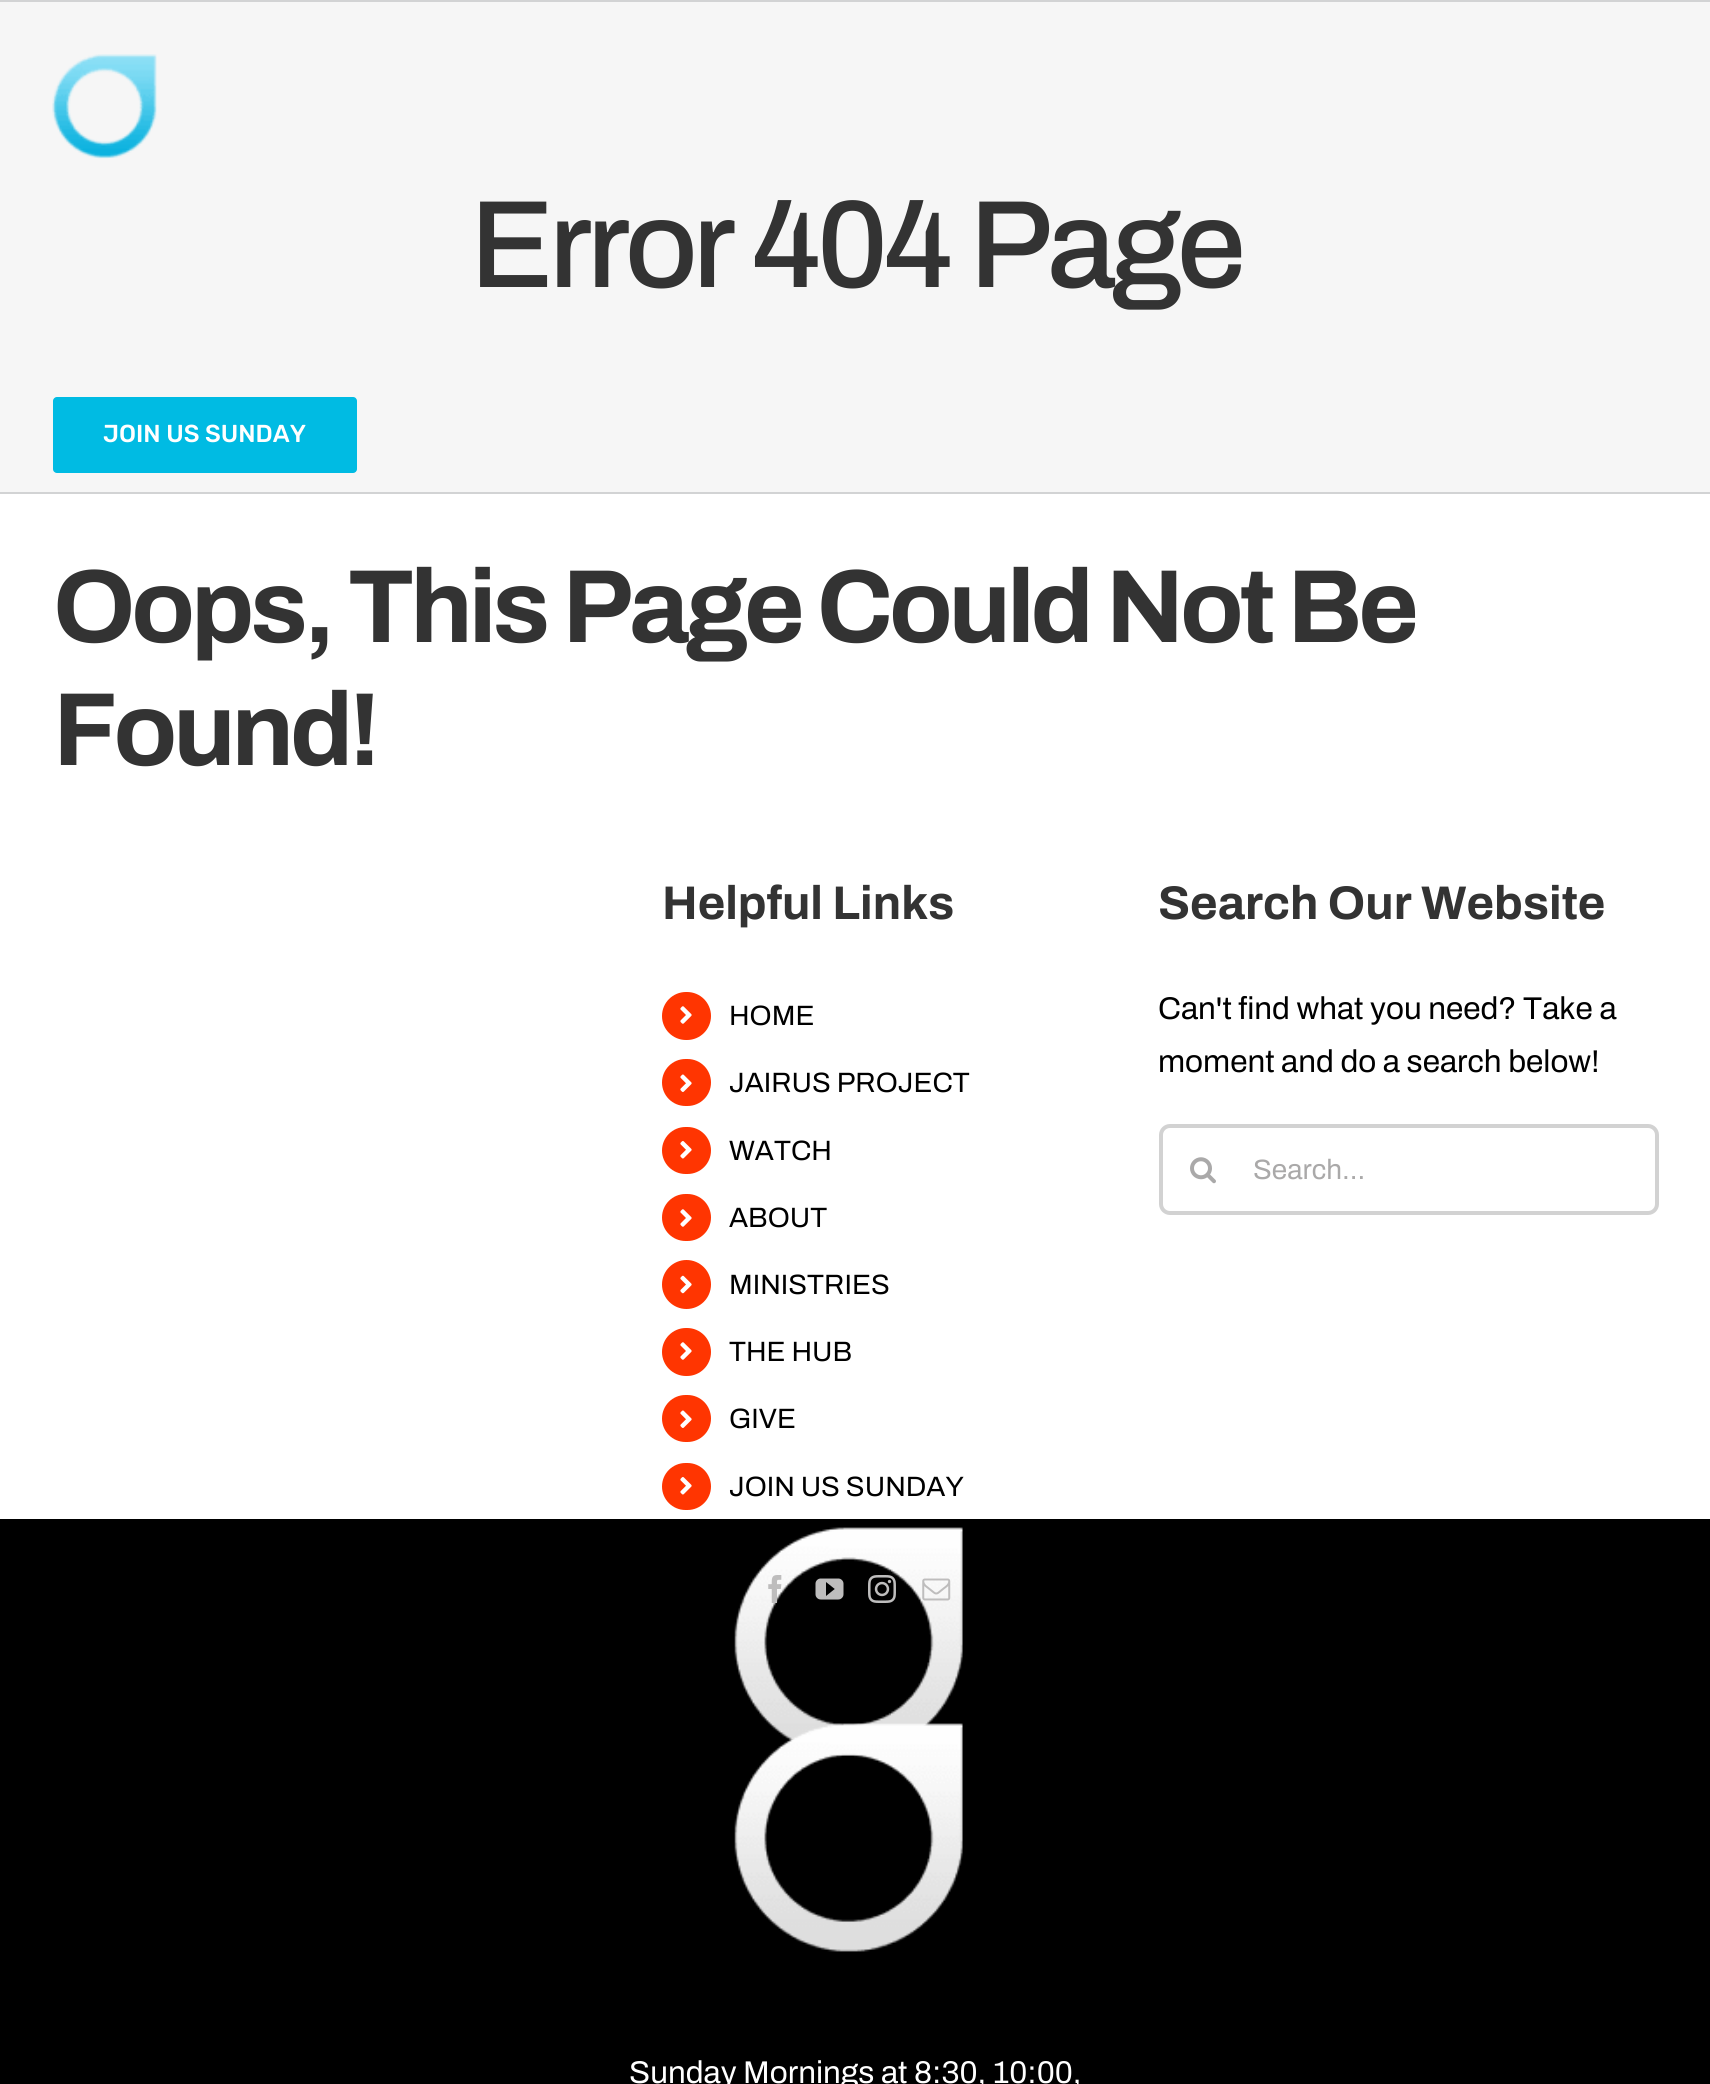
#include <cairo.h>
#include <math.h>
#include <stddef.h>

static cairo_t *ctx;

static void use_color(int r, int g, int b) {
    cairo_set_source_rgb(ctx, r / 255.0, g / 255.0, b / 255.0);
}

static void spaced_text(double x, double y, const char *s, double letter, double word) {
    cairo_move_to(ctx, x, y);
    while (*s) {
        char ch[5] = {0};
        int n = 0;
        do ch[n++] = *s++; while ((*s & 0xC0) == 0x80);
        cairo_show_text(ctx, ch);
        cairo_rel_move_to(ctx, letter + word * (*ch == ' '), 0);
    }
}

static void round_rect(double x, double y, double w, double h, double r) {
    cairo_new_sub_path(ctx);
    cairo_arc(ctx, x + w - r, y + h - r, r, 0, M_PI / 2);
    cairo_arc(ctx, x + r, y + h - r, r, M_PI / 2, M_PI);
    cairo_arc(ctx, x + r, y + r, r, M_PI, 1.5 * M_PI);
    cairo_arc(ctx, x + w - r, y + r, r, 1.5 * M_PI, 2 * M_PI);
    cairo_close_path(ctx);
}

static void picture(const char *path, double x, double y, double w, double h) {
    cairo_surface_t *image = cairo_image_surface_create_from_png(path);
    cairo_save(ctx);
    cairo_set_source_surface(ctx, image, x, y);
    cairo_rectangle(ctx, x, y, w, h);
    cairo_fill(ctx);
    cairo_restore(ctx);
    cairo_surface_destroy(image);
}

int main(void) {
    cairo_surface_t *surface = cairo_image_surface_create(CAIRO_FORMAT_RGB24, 1710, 2084);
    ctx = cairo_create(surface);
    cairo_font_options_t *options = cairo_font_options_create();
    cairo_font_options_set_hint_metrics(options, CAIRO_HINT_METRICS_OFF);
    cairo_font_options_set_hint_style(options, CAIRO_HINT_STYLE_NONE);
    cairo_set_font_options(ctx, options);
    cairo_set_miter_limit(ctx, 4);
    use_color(255, 255, 255);
    cairo_paint(ctx);
    use_color(246, 246, 246);
    cairo_rectangle(ctx, 0, 2, 1710, 490);
    cairo_fill(ctx);
    use_color(210, 211, 212);
    cairo_rectangle(ctx, 0, 0, 1710, 2);
    cairo_fill(ctx);
    cairo_rectangle(ctx, 0, 492, 1710, 2);
    cairo_fill(ctx);
    cairo_select_font_face(ctx, "Archivo Medium", CAIRO_FONT_SLANT_NORMAL, CAIRO_FONT_WEIGHT_NORMAL);
    cairo_set_font_size(ctx, 124.5);
    use_color(51, 51, 51);
    spaced_text(470, 287, "Error 404 Page", -5, 0);
    picture("img1.png", 52, 54, 105, 105);
    use_color(0, 187, 227);
    round_rect(53, 397, 304, 76, 4);
    cairo_fill(ctx);
    cairo_select_font_face(ctx, "Rubik Medium", CAIRO_FONT_SLANT_NORMAL, CAIRO_FONT_WEIGHT_NORMAL);
    cairo_set_font_size(ctx, 24.5);
    use_color(255, 255, 255);
    cairo_move_to(ctx, 103, 442);
    cairo_show_text(ctx, "JOIN US SUNDAY");
    cairo_select_font_face(ctx, "Archivo", CAIRO_FONT_SLANT_NORMAL, CAIRO_FONT_WEIGHT_BOLD);
    cairo_set_font_size(ctx, 104);
    use_color(51, 51, 51);
    spaced_text(53, 642, "Oops, This Page Could Not Be", -4.15, 0);
    spaced_text(53, 765, "Found!", -4.15, 0);
    cairo_set_font_size(ctx, 47.25);
    cairo_move_to(ctx, 662, 919);
    cairo_show_text(ctx, "Helpful Links");
    use_color(255, 53, 1);
    round_rect(662, 992, 49, 48, 24);
    cairo_fill(ctx);
    picture("img2.png", 680, 1006, 12, 18);
    cairo_select_font_face(ctx, "Archivo", CAIRO_FONT_SLANT_NORMAL, CAIRO_FONT_WEIGHT_NORMAL);
    cairo_set_font_size(ctx, 28);
    use_color(0, 0, 0);
    cairo_move_to(ctx, 729, 1025);
    cairo_show_text(ctx, "HOME");
    use_color(255, 53, 1);
    round_rect(662, 1059, 49, 47, 23.5);
    cairo_fill(ctx);
    picture("img3.png", 680, 1074, 12, 18);
    use_color(0, 0, 0);
    cairo_move_to(ctx, 729, 1092);
    cairo_show_text(ctx, "JAIRUS PROJECT");
    use_color(255, 53, 1);
    round_rect(662, 1127, 49, 47, 23.5);
    cairo_fill(ctx);
    picture("img4.png", 680, 1141, 12, 18);
    use_color(0, 0, 0);
    cairo_move_to(ctx, 729, 1160);
    cairo_show_text(ctx, "WATCH");
    use_color(255, 53, 1);
    round_rect(662, 1194, 49, 47, 23.5);
    cairo_fill(ctx);
    picture("img2.png", 680, 1209, 12, 18);
    use_color(0, 0, 0);
    cairo_move_to(ctx, 729, 1227);
    cairo_show_text(ctx, "ABOUT");
    use_color(255, 53, 1);
    cairo_new_path(ctx);
    cairo_arc(ctx, 686.5, 1284.5, 24.5, 0, 2 * M_PI);
    cairo_fill(ctx);
    picture("img5.png", 680, 1275, 12, 19);
    use_color(0, 0, 0);
    cairo_move_to(ctx, 729, 1294);
    cairo_show_text(ctx, "MINISTRIES");
    use_color(255, 53, 1);
    round_rect(662, 1328, 49, 48, 24);
    cairo_fill(ctx);
    picture("img2.png", 680, 1342, 12, 18);
    use_color(0, 0, 0);
    cairo_move_to(ctx, 729, 1361);
    cairo_show_text(ctx, "THE HUB");
    use_color(255, 53, 1);
    round_rect(662, 1395, 49, 47, 23.5);
    cairo_fill(ctx);
    picture("img3.png", 680, 1410, 12, 18);
    use_color(0, 0, 0);
    cairo_move_to(ctx, 729, 1428);
    cairo_show_text(ctx, "GIVE");
    use_color(255, 53, 1);
    round_rect(662, 1463, 49, 47, 23.5);
    cairo_fill(ctx);
    picture("img4.png", 680, 1477, 12, 18);
    use_color(0, 0, 0);
    cairo_move_to(ctx, 729, 1496);
    cairo_show_text(ctx, "JOIN US SUNDAY");
    cairo_select_font_face(ctx, "Archivo", CAIRO_FONT_SLANT_NORMAL, CAIRO_FONT_WEIGHT_BOLD);
    cairo_set_font_size(ctx, 47.25);
    use_color(51, 51, 51);
    cairo_move_to(ctx, 1158, 919);
    cairo_show_text(ctx, "Search Our Website");
    cairo_select_font_face(ctx, "Archivo", CAIRO_FONT_SLANT_NORMAL, CAIRO_FONT_WEIGHT_NORMAL);
    cairo_set_font_size(ctx, 31.5);
    use_color(0, 0, 0);
    cairo_move_to(ctx, 1158, 1019);
    cairo_show_text(ctx, "Can't find what you need? Take a");
    cairo_move_to(ctx, 1158, 1072);
    cairo_show_text(ctx, "moment and do a search below!");
    round_rect(1161, 1126, 496, 87, 9);
    use_color(210, 210, 210);
    cairo_set_line_width(ctx, 4);
    cairo_stroke(ctx);
    picture("img6.png", 1190, 1157, 26, 27);
    cairo_set_font_size(ctx, 28);
    use_color(170, 169, 169);
    cairo_move_to(ctx, 1253, 1179);
    cairo_show_text(ctx, "Search...");
    use_color(0, 0, 0);
    cairo_rectangle(ctx, 0, 1519, 1710, 565);
    cairo_fill(ctx);
    picture("img7.png", 734, 1527, 229, 229);
    picture("img8.png", 768, 1575, 14, 28);
    picture("img9.png", 815, 1578, 29, 22);
    picture("img10.png", 868, 1575, 28, 28);
    picture("img11.png", 922, 1578, 29, 23);
    picture("img12.png", 734, 1723, 229, 229);
    cairo_set_font_size(ctx, 31.5);
    use_color(255, 255, 255);
    cairo_move_to(ctx, 629, 2083);
    cairo_show_text(ctx, "Sunday Mornings at 8:30, 10:00,");
    cairo_surface_write_to_png(surface, "result.png");
    cairo_font_options_destroy(options);
    cairo_destroy(ctx);
    cairo_surface_destroy(surface);
    return 0;
}
